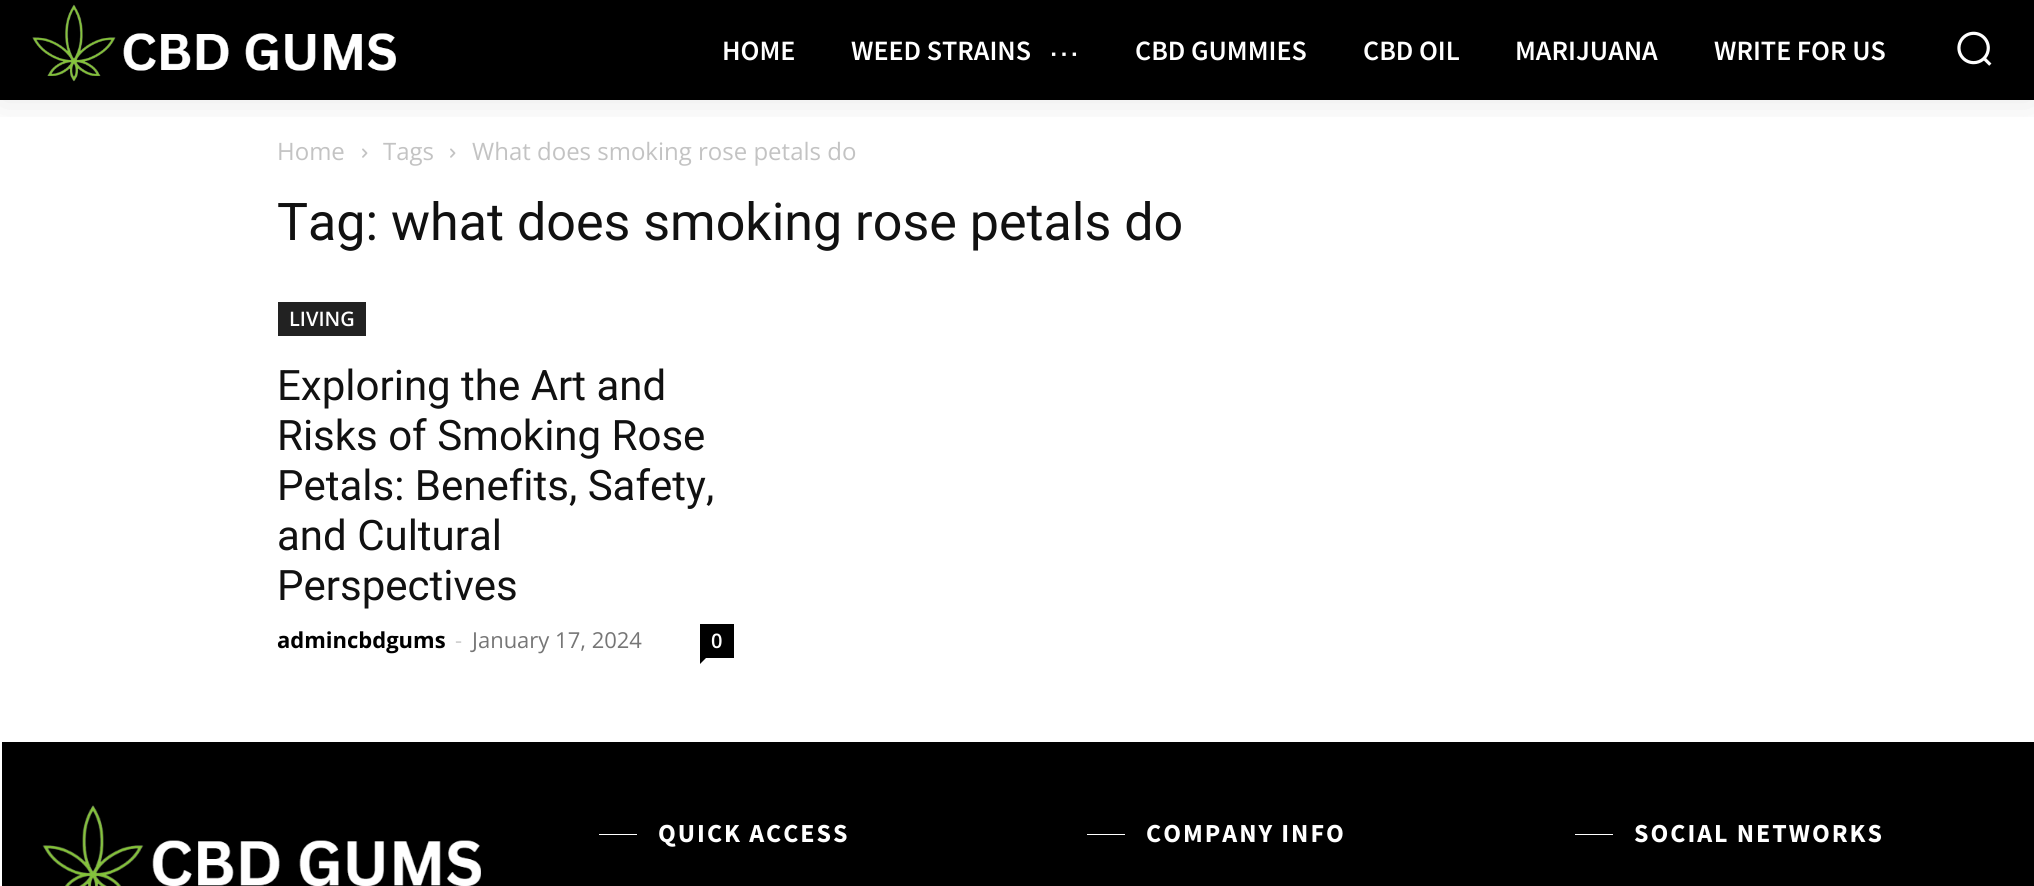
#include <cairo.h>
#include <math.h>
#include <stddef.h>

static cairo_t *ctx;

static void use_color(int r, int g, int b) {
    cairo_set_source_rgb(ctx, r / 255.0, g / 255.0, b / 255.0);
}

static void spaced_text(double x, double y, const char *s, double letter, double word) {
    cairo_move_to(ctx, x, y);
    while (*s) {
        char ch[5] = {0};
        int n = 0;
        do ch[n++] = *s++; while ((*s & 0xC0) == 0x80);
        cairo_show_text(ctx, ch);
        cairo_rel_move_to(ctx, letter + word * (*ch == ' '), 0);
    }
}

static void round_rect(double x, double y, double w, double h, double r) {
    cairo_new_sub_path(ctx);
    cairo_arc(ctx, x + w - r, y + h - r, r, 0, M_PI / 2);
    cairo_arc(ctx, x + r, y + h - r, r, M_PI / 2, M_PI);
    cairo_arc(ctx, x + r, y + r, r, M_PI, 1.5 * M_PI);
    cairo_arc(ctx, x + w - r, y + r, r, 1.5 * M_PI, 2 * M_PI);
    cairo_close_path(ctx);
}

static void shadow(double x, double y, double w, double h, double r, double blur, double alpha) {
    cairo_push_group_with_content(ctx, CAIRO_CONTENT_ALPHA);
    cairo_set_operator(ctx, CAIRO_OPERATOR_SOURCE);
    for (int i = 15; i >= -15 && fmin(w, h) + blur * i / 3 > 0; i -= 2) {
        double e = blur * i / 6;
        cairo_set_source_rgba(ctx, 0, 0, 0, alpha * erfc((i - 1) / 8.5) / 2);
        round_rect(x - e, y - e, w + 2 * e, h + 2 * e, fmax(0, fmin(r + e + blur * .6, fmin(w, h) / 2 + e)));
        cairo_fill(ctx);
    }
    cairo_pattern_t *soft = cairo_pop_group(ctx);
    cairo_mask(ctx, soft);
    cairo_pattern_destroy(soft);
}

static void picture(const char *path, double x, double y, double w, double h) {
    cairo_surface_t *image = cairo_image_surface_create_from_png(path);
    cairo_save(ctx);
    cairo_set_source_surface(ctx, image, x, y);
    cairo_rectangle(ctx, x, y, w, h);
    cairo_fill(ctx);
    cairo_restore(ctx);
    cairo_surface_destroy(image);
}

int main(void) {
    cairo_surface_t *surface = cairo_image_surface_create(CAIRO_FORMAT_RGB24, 2034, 886);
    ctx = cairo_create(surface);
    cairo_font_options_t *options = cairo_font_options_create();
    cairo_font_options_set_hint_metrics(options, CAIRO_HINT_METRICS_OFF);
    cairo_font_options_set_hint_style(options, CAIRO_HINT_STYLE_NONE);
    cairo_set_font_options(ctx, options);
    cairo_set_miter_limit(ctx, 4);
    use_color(255, 255, 255);
    cairo_paint(ctx);
    use_color(0, 0, 0);
    cairo_rectangle(ctx, 0, 0, 2034, 100);
    cairo_fill(ctx);
    picture("img4.png", 362, 148, 6, 10);
    picture("img4.png", 450, 148, 6, 10);
    cairo_save(ctx);
    cairo_rectangle(ctx, 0, 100, 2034, 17);
    cairo_clip(ctx);
    use_color(0, 0, 0);
    shadow(0, 0, 2034, 100, 0, 20, 0.1);
    cairo_restore(ctx);
    picture("img1.png", 32, 4, 364, 78);
    cairo_select_font_face(ctx, "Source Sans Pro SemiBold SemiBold", CAIRO_FONT_SLANT_NORMAL, CAIRO_FONT_WEIGHT_NORMAL);
    cairo_set_font_size(ctx, 28);
    use_color(255, 255, 255);
    cairo_move_to(ctx, 722, 60);
    cairo_show_text(ctx, "HOME");
    cairo_move_to(ctx, 851, 60);
    cairo_show_text(ctx, "WEED STRAINS");
    picture("img2.png", 1051, 52, 26, 4);
    cairo_move_to(ctx, 1135, 60);
    cairo_show_text(ctx, "CBD GUMMIES");
    cairo_move_to(ctx, 1363, 60);
    cairo_show_text(ctx, "CBD OIL");
    cairo_move_to(ctx, 1515, 60);
    cairo_show_text(ctx, "MARIJUANA");
    cairo_move_to(ctx, 1714, 60);
    cairo_show_text(ctx, "WRITE FOR US");
    picture("img3.png", 1957, 31, 35, 35);
    cairo_select_font_face(ctx, "Open Sans", CAIRO_FONT_SLANT_NORMAL, CAIRO_FONT_WEIGHT_NORMAL);
    cairo_set_font_size(ctx, 24);
    use_color(195, 195, 195);
    cairo_move_to(ctx, 277, 160);
    cairo_show_text(ctx, "Home");
    cairo_move_to(ctx, 383, 160);
    cairo_show_text(ctx, "Tags");
    cairo_move_to(ctx, 472, 160);
    cairo_show_text(ctx, "What does smoking rose petals do");
    cairo_select_font_face(ctx, "Roboto", CAIRO_FONT_SLANT_NORMAL, CAIRO_FONT_WEIGHT_NORMAL);
    cairo_set_font_size(ctx, 52);
    use_color(17, 17, 17);
    cairo_move_to(ctx, 277, 240);
    cairo_show_text(ctx, "Tag: what does smoking rose petals do");
    use_color(34, 34, 34);
    cairo_rectangle(ctx, 278, 302, 88, 34);
    cairo_fill(ctx);
    cairo_select_font_face(ctx, "Open Sans SemiBold", CAIRO_FONT_SLANT_NORMAL, CAIRO_FONT_WEIGHT_NORMAL);
    cairo_set_font_size(ctx, 20);
    use_color(255, 255, 255);
    cairo_move_to(ctx, 289, 326);
    cairo_show_text(ctx, "LIVING");
    cairo_select_font_face(ctx, "Roboto", CAIRO_FONT_SLANT_NORMAL, CAIRO_FONT_WEIGHT_NORMAL);
    cairo_set_font_size(ctx, 42);
    use_color(17, 17, 17);
    cairo_move_to(ctx, 277, 400);
    cairo_show_text(ctx, "Exploring the Art and");
    cairo_move_to(ctx, 277, 450);
    cairo_show_text(ctx, "Risks of Smoking Rose");
    cairo_move_to(ctx, 277, 500);
    cairo_show_text(ctx, "Petals: Benefits, Safety,");
    cairo_move_to(ctx, 277, 550);
    cairo_show_text(ctx, "and Cultural");
    cairo_move_to(ctx, 277, 600);
    cairo_show_text(ctx, "Perspectives");
    cairo_select_font_face(ctx, "Open Sans", CAIRO_FONT_SLANT_NORMAL, CAIRO_FONT_WEIGHT_BOLD);
    cairo_set_font_size(ctx, 22);
    use_color(0, 0, 0);
    cairo_move_to(ctx, 277, 648);
    cairo_show_text(ctx, "admincbdgums");
    cairo_select_font_face(ctx, "Open Sans", CAIRO_FONT_SLANT_NORMAL, CAIRO_FONT_WEIGHT_NORMAL);
    use_color(204, 204, 204);
    cairo_move_to(ctx, 455, 648);
    cairo_show_text(ctx, "-");
    use_color(118, 118, 118);
    cairo_move_to(ctx, 472, 648);
    cairo_show_text(ctx, "January 17, 2024");
    use_color(0, 0, 0);
    cairo_rectangle(ctx, 700, 624, 34, 34);
    cairo_fill(ctx);
    cairo_select_font_face(ctx, "Open Sans SemiBold", CAIRO_FONT_SLANT_NORMAL, CAIRO_FONT_WEIGHT_NORMAL);
    cairo_set_font_size(ctx, 20);
    use_color(255, 255, 255);
    cairo_move_to(ctx, 711, 648);
    cairo_show_text(ctx, "0");
    use_color(0, 0, 0);
    cairo_new_path(ctx);
    cairo_move_to(ctx, 700, 658);
    cairo_line_to(ctx, 706, 658);
    cairo_line_to(ctx, 700, 664);
    cairo_close_path(ctx);
    cairo_fill(ctx);
    cairo_rectangle(ctx, 2, 742, 2032, 144);
    cairo_fill(ctx);
    picture("img5.png", 42, 805, 439, 81);
    use_color(255, 255, 255);
    cairo_rectangle(ctx, 599, 834, 38, 1);
    cairo_fill(ctx);
    cairo_select_font_face(ctx, "Source Sans Pro", CAIRO_FONT_SLANT_NORMAL, CAIRO_FONT_WEIGHT_BOLD);
    cairo_set_font_size(ctx, 26);
    spaced_text(658, 842, "QUICK ACCESS", 2, 0);
    cairo_rectangle(ctx, 1087, 834, 38, 1);
    cairo_fill(ctx);
    spaced_text(1146, 842, "COMPANY INFO", 2, 0);
    cairo_rectangle(ctx, 1575, 834, 38, 1);
    cairo_fill(ctx);
    spaced_text(1634, 842, "SOCIAL NETWORKS", 2, 0);
    cairo_surface_write_to_png(surface, "result.png");
    cairo_font_options_destroy(options);
    cairo_destroy(ctx);
    cairo_surface_destroy(surface);
    return 0;
}
